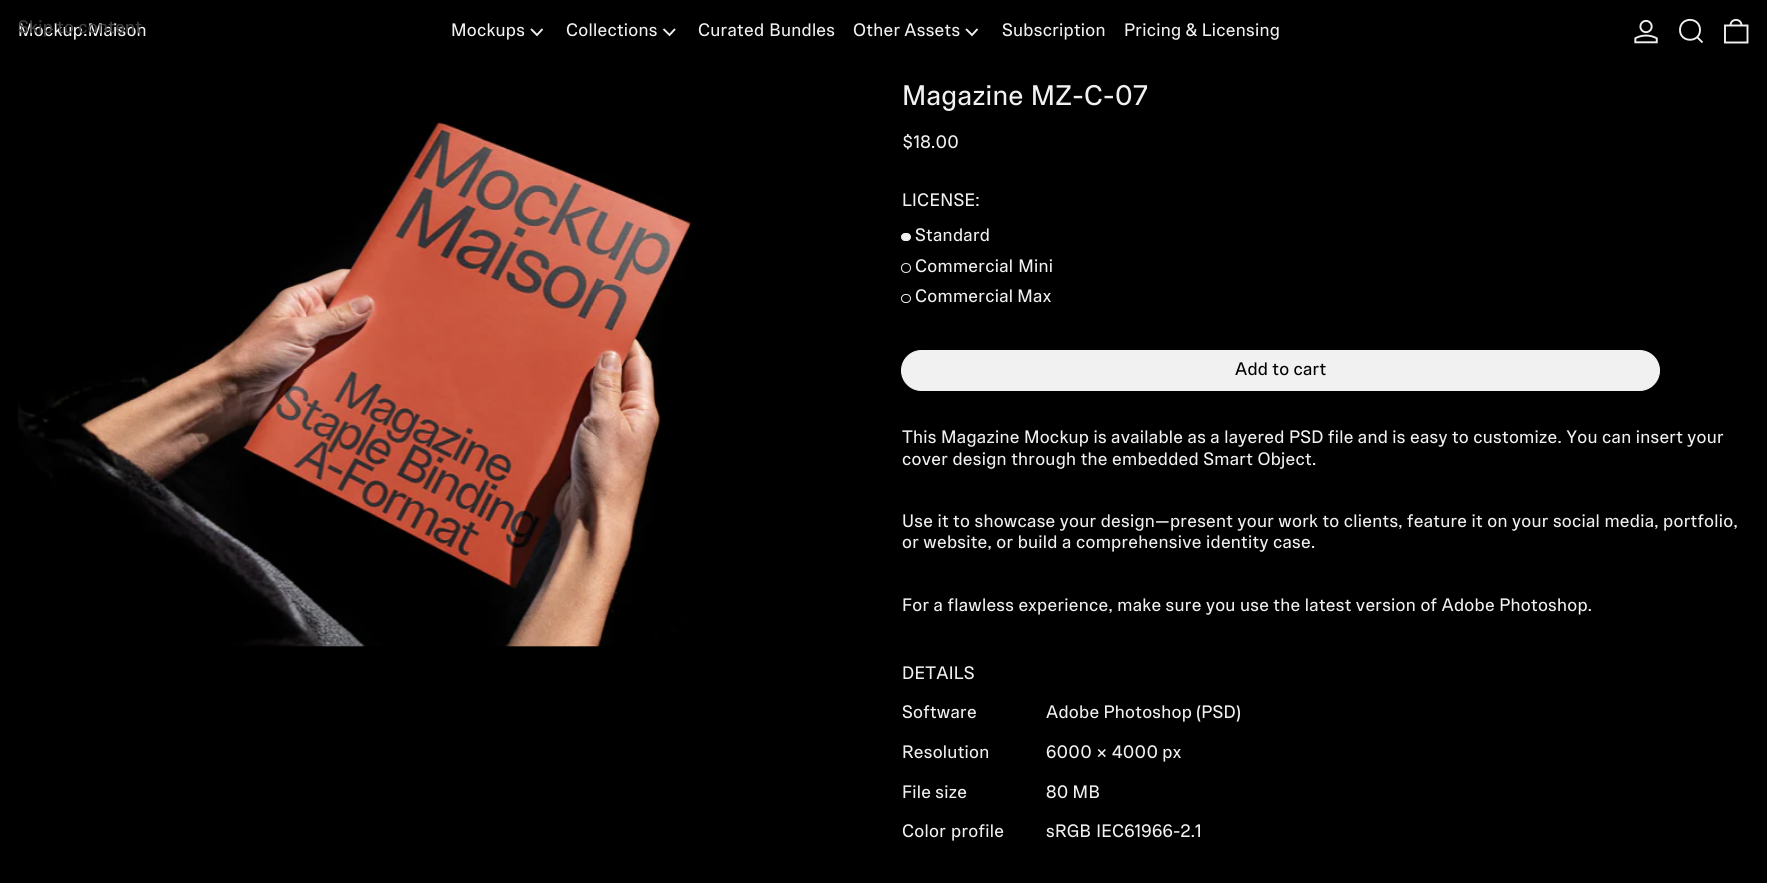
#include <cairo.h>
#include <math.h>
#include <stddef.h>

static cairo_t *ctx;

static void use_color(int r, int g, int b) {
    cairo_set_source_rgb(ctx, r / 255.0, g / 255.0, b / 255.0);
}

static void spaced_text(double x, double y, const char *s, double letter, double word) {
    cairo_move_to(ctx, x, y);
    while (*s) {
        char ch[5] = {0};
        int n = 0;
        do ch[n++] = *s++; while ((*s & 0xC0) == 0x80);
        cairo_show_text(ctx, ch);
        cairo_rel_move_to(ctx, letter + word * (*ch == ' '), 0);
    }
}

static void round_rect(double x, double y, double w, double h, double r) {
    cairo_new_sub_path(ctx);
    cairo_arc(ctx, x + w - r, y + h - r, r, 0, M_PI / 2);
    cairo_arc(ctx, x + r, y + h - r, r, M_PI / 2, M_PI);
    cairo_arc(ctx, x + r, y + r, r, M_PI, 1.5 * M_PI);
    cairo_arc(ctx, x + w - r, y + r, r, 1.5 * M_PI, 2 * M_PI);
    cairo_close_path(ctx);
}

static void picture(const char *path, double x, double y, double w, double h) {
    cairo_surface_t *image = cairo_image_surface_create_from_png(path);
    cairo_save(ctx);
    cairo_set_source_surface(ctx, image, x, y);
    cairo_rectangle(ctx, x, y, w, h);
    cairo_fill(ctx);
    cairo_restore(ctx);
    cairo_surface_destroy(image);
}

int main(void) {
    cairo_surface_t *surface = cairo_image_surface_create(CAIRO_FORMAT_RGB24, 1767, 883);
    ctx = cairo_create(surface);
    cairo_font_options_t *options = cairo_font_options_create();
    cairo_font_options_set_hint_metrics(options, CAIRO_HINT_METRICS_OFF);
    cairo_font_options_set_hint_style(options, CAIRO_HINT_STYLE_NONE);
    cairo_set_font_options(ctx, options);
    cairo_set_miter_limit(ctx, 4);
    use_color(0, 0, 0);
    cairo_paint(ctx);
    cairo_select_font_face(ctx, "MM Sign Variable", CAIRO_FONT_SLANT_NORMAL, CAIRO_FONT_WEIGHT_NORMAL);
    cairo_set_font_size(ctx, 18.05);
    use_color(241, 241, 241);
    spaced_text(18, 36, "Mockup.Maison", 0.27, 0);
    use_color(63, 63, 63);
    spaced_text(18, 33, "Skip to content", 0.27, 0);
    use_color(241, 241, 241);
    spaced_text(451, 36, "Mockups", 0.27, 0);
    cairo_new_path(ctx);
    cairo_move_to(ctx, 531, 29);
    cairo_line_to(ctx, 537, 35);
    cairo_line_to(ctx, 542.5, 29);
    cairo_set_line_width(ctx, 1.9);
    cairo_stroke(ctx);
    spaced_text(566, 36, "Collections", 0.27, 0);
    cairo_new_path(ctx);
    cairo_move_to(ctx, 663.5, 29);
    cairo_line_to(ctx, 669.5, 35);
    cairo_line_to(ctx, 675, 29);
    cairo_stroke(ctx);
    spaced_text(698, 36, "Curated Bundles", 0.27, 1);
    spaced_text(853, 36, "Other Assets", 0.27, 0);
    cairo_new_path(ctx);
    cairo_move_to(ctx, 966, 29);
    cairo_line_to(ctx, 972, 35);
    cairo_line_to(ctx, 977.5, 29);
    cairo_stroke(ctx);
    spaced_text(1002, 36, "Subscription", 0.27, 0);
    spaced_text(1124, 36, "Pricing & Licensing", 0.27, 0);
    picture("img1.png", 1634, 19, 24, 25);
    cairo_new_path(ctx);
    cairo_move_to(ctx, 1680, 30);
    cairo_curve_to(ctx, 1680, 43, 1700, 43, 1700, 30);
    cairo_curve_to(ctx, 1700, 16.5, 1680, 16.5, 1680, 30);
    cairo_close_path(ctx);
    cairo_move_to(ctx, 1697, 37);
    cairo_line_to(ctx, 1702.5, 42.5);
    cairo_stroke(ctx);
    cairo_new_path(ctx);
    cairo_move_to(ctx, 1725, 25.5);
    cairo_line_to(ctx, 1747.5, 25.5);
    cairo_line_to(ctx, 1747.5, 42.5);
    cairo_line_to(ctx, 1725, 42.5);
    cairo_close_path(ctx);
    cairo_move_to(ctx, 1741.5, 25.5);
    cairo_curve_to(ctx, 1741.5, 18, 1730.5, 18, 1730.5, 25.5);
    cairo_stroke(ctx);
    picture("img2.png", 18, 118, 677, 529);
    cairo_set_font_size(ctx, 28.25);
    spaced_text(902, 105, "Magazine MZ-C-07", 0.25, 1);
    cairo_set_font_size(ctx, 18.05);
    spaced_text(902, 148, "$18.00", 0.27, 0);
    spaced_text(902, 206, "LICENSE:", 0.27, 0);
    round_rect(901.5, 233.5, 9, 7, 3.5);
    cairo_fill_preserve(ctx);
    cairo_set_line_width(ctx, 1);
    cairo_stroke(ctx);
    spaced_text(915, 241, "Standard", 0.27, 0);
    cairo_new_path(ctx);
    cairo_arc(ctx, 906, 268, 4.5, 0, 2 * M_PI);
    cairo_stroke(ctx);
    spaced_text(915, 272, "Commercial Mini", 0.27, 1);
    round_rect(901.5, 294.5, 9, 8, 4);
    cairo_stroke(ctx);
    spaced_text(915, 302, "Commercial Max", 0.27, 0);
    round_rect(901.5, 350.5, 758, 40, 20);
    cairo_fill_preserve(ctx);
    cairo_stroke(ctx);
    use_color(0, 0, 0);
    spaced_text(1235, 375, "Add to cart", 0.27, 0);
    use_color(241, 241, 241);
    spaced_text(902, 443, "This Magazine Mockup is available as a layered PSD file and is easy to customize. You can insert your", 0.27, 0.2);
    spaced_text(902, 465, "cover design through the embedded Smart Object.", 0.27, 0.25);
    spaced_text(902, 527, "Use it to showcase your design—present your work to clients, feature it on your social media, portfolio,", 0.27, 0.25);
    spaced_text(902, 548, "or website, or build a comprehensive identity case.", 0.27, 0.25);
    spaced_text(902, 611, "For a flawless experience, make sure you use the latest version of Adobe Photoshop.", 0.27, 0.25);
    spaced_text(902, 679, "DETAILS", 0.27, 0);
    spaced_text(902, 718, "Software", 0.27, 0);
    spaced_text(1046, 718, "Adobe Photoshop (PSD)", 0.27, 0);
    spaced_text(902, 758, "Resolution", 0.27, 0);
    spaced_text(1046, 758, "6000 × 4000 px", 0.27, 0);
    spaced_text(902, 798, "File size", 0.27, 0);
    spaced_text(1046, 798, "80 MB", 0.27, 0);
    spaced_text(902, 837, "Color profile", 0.27, 1);
    spaced_text(1046, 837, "sRGB IEC61966-2.1", 0.27, 1);
    cairo_surface_write_to_png(surface, "result.png");
    cairo_font_options_destroy(options);
    cairo_destroy(ctx);
    cairo_surface_destroy(surface);
    return 0;
}
